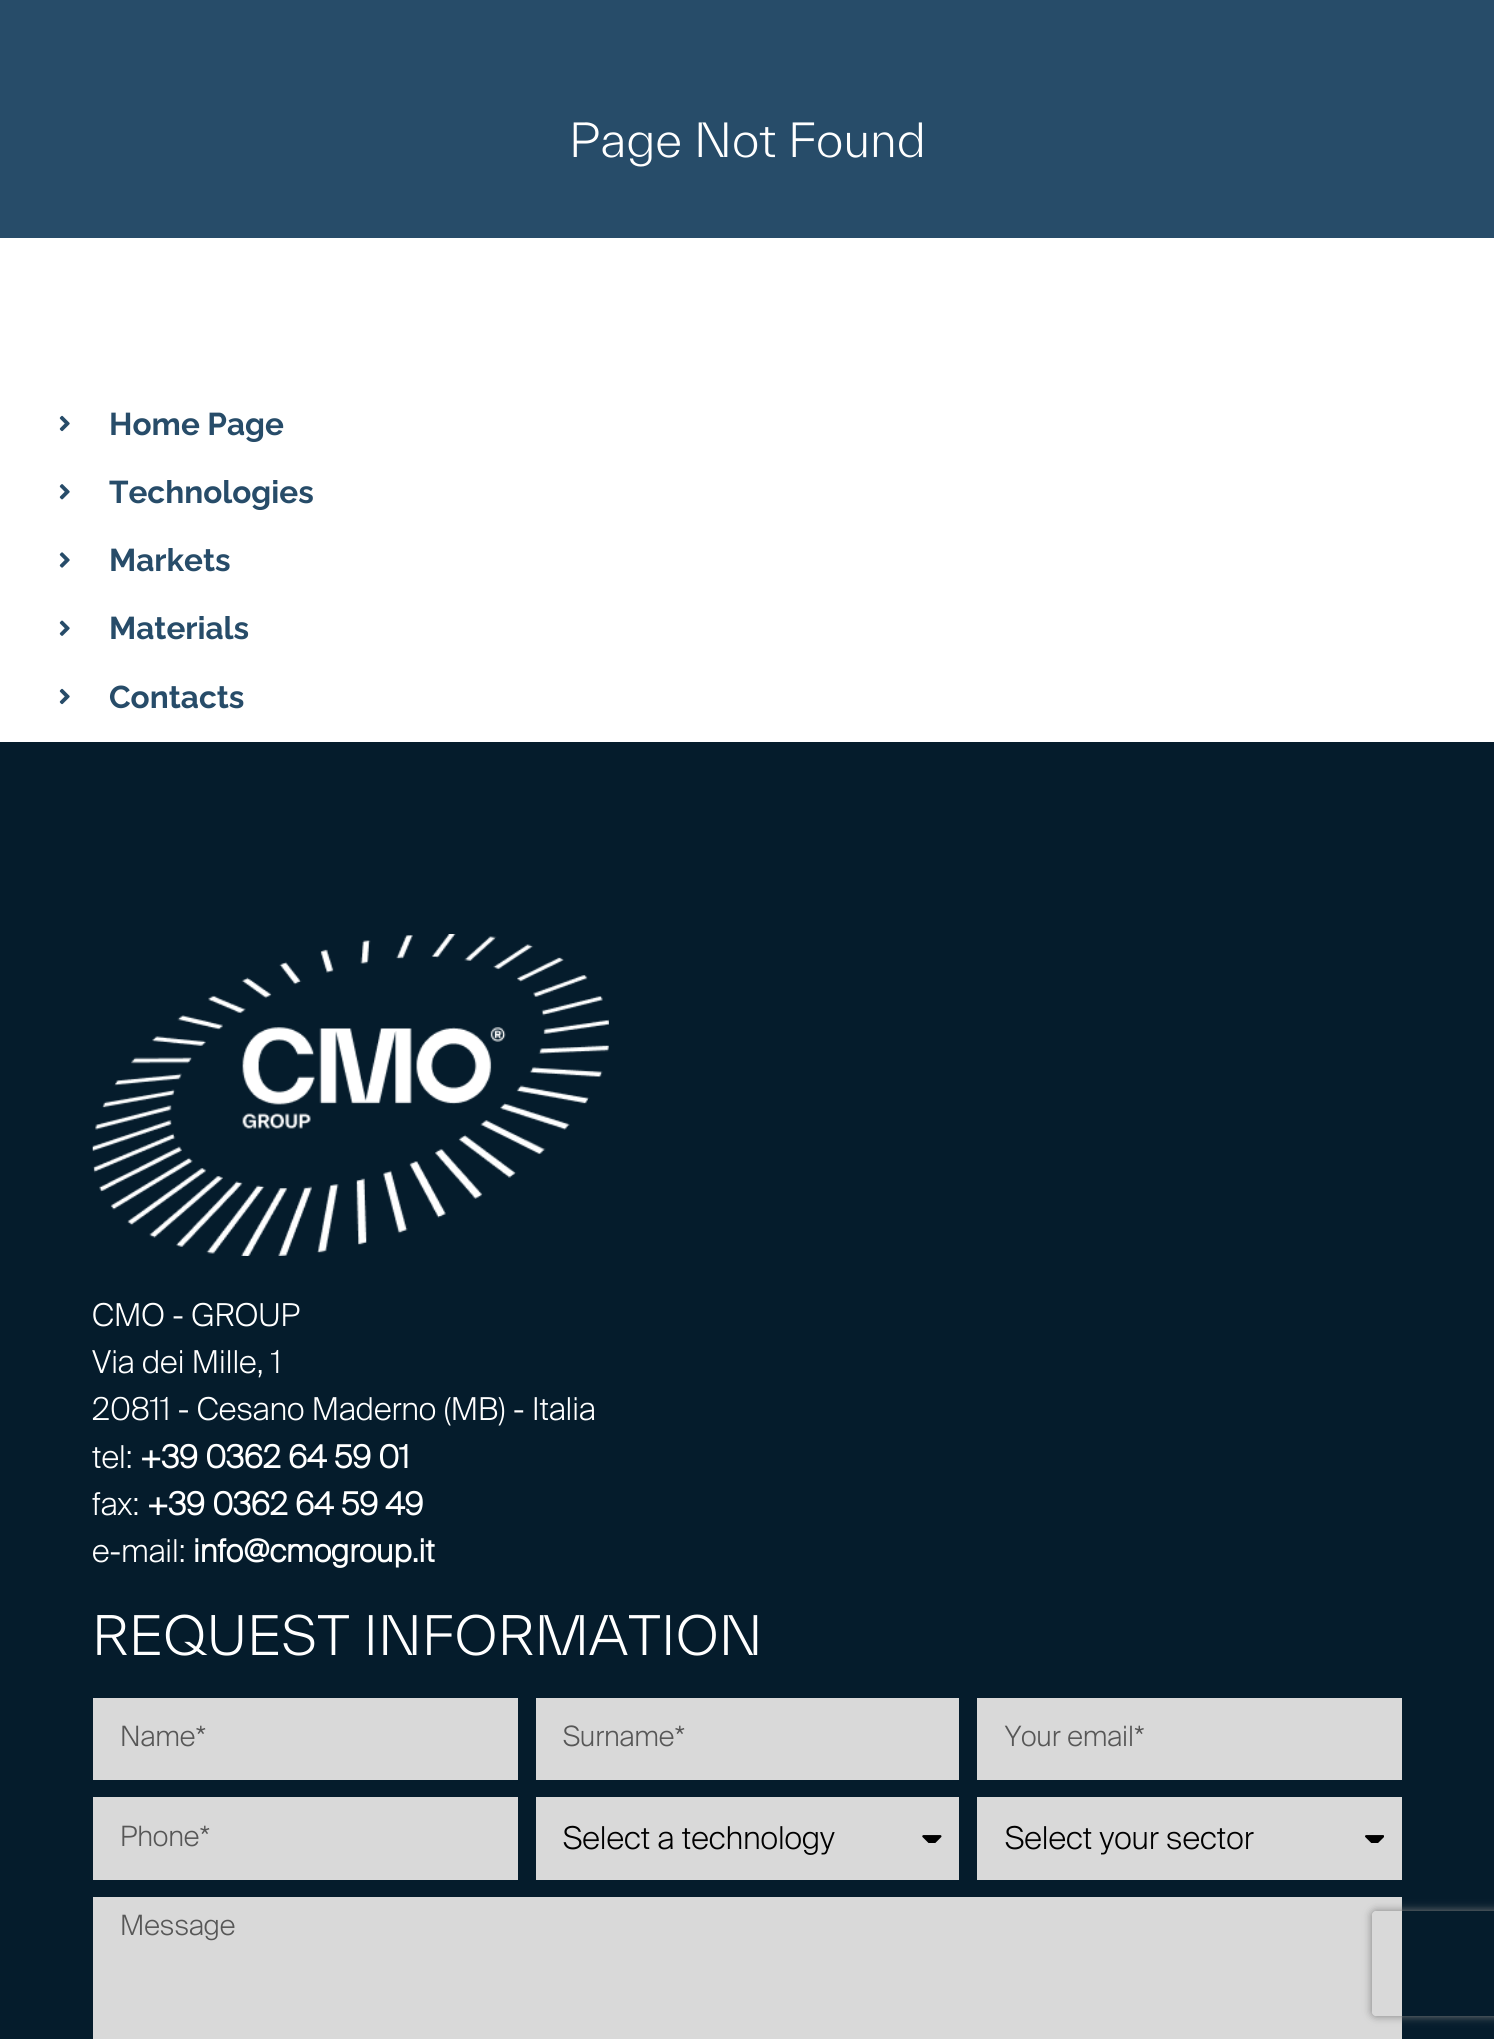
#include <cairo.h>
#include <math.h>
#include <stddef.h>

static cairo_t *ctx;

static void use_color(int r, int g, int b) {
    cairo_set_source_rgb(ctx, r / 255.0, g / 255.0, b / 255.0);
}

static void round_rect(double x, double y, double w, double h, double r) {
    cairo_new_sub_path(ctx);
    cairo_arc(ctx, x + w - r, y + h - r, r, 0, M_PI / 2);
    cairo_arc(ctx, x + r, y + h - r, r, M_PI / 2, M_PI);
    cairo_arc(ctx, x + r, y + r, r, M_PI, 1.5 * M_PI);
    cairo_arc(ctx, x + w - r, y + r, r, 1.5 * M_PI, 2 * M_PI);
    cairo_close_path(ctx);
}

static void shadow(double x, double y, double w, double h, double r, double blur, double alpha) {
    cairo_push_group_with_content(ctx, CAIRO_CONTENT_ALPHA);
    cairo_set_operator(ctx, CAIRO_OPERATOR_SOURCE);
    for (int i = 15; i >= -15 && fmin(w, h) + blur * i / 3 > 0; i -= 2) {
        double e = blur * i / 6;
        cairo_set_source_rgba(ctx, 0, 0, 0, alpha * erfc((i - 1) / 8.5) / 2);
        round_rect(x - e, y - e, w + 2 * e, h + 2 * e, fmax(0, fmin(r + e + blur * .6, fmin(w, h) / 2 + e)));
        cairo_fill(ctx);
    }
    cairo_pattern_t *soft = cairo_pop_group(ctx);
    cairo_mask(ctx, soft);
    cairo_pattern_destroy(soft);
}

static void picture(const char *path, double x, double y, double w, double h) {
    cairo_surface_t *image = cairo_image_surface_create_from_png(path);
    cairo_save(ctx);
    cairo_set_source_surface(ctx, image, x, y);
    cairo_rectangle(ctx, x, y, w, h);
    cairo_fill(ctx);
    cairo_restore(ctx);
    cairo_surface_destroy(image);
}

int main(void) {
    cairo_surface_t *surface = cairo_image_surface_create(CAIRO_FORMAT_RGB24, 1494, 2039);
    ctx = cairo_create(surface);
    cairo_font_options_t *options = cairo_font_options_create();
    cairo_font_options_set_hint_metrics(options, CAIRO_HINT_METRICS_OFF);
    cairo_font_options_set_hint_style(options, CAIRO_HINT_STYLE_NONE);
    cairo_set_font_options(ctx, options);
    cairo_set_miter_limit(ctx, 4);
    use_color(255, 255, 255);
    cairo_paint(ctx);
    use_color(39, 76, 105);
    cairo_rectangle(ctx, 0, 0, 1494, 238);
    cairo_fill(ctx);
    cairo_select_font_face(ctx, "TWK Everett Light", CAIRO_FONT_SLANT_NORMAL, CAIRO_FONT_WEIGHT_NORMAL);
    cairo_set_font_size(ctx, 45.5);
    use_color(255, 255, 255);
    cairo_move_to(ctx, 569, 157);
    cairo_show_text(ctx, "Page Not Found");
    picture("img1.png", 59, 415, 11, 17);
    cairo_select_font_face(ctx, "Raleway", CAIRO_FONT_SLANT_NORMAL, CAIRO_FONT_WEIGHT_BOLD);
    cairo_set_font_size(ctx, 31.5);
    use_color(39, 76, 105);
    cairo_move_to(ctx, 109, 435);
    cairo_show_text(ctx, "Home Page");
    picture("img2.png", 59, 484, 11, 16);
    cairo_move_to(ctx, 109, 503);
    cairo_show_text(ctx, "Technologies");
    picture("img3.png", 59, 552, 11, 16);
    cairo_move_to(ctx, 109, 571);
    cairo_show_text(ctx, "Markets");
    picture("img4.png", 59, 620, 11, 16);
    cairo_move_to(ctx, 109, 639);
    cairo_show_text(ctx, "Materials");
    picture("img1.png", 59, 688, 11, 17);
    cairo_move_to(ctx, 109, 708);
    cairo_show_text(ctx, "Contacts");
    use_color(5, 28, 44);
    cairo_rectangle(ctx, 0, 742, 1494, 1297);
    cairo_fill(ctx);
    picture("img5.png", 92, 934, 517, 322);
    cairo_select_font_face(ctx, "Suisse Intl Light", CAIRO_FONT_SLANT_NORMAL, CAIRO_FONT_WEIGHT_NORMAL);
    use_color(255, 255, 255);
    cairo_move_to(ctx, 92, 1326);
    cairo_show_text(ctx, "CMO - GROUP");
    cairo_move_to(ctx, 92, 1373);
    cairo_show_text(ctx, "Via dei Mille, 1");
    cairo_move_to(ctx, 92, 1420);
    cairo_show_text(ctx, "20811 - Cesano Maderno (MB) - Italia");
    cairo_move_to(ctx, 92, 1468);
    cairo_show_text(ctx, "tel:");
    cairo_select_font_face(ctx, "Suisse Intl", CAIRO_FONT_SLANT_NORMAL, CAIRO_FONT_WEIGHT_BOLD);
    cairo_move_to(ctx, 140, 1468);
    cairo_show_text(ctx, "+39 0362 64 59 01");
    cairo_select_font_face(ctx, "Suisse Intl Light", CAIRO_FONT_SLANT_NORMAL, CAIRO_FONT_WEIGHT_NORMAL);
    cairo_move_to(ctx, 92, 1515);
    cairo_show_text(ctx, "fax:");
    cairo_select_font_face(ctx, "Suisse Intl", CAIRO_FONT_SLANT_NORMAL, CAIRO_FONT_WEIGHT_BOLD);
    cairo_move_to(ctx, 147, 1515);
    cairo_show_text(ctx, "+39 0362 64 59 49");
    cairo_select_font_face(ctx, "Suisse Intl Light", CAIRO_FONT_SLANT_NORMAL, CAIRO_FONT_WEIGHT_NORMAL);
    cairo_move_to(ctx, 92, 1562);
    cairo_show_text(ctx, "e-mail:");
    cairo_select_font_face(ctx, "Suisse Intl", CAIRO_FONT_SLANT_NORMAL, CAIRO_FONT_WEIGHT_BOLD);
    cairo_move_to(ctx, 193, 1562);
    cairo_show_text(ctx, "info@cmogroup.it");
    cairo_select_font_face(ctx, "TWK Everett Light", CAIRO_FONT_SLANT_NORMAL, CAIRO_FONT_WEIGHT_NORMAL);
    cairo_set_font_size(ctx, 52.5);
    cairo_move_to(ctx, 92, 1655);
    cairo_show_text(ctx, "REQUEST INFORMATION");
    use_color(217, 217, 217);
    cairo_rectangle(ctx, 93, 1698, 425, 82);
    cairo_fill(ctx);
    cairo_select_font_face(ctx, "Suisse Intl Light", CAIRO_FONT_SLANT_NORMAL, CAIRO_FONT_WEIGHT_NORMAL);
    cairo_set_font_size(ctx, 28);
    use_color(87, 87, 87);
    cairo_move_to(ctx, 120, 1746);
    cairo_show_text(ctx, "Name*");
    use_color(217, 217, 217);
    cairo_rectangle(ctx, 536, 1698, 423, 82);
    cairo_fill(ctx);
    use_color(87, 87, 87);
    cairo_move_to(ctx, 563, 1746);
    cairo_show_text(ctx, "Surname*");
    use_color(217, 217, 217);
    cairo_rectangle(ctx, 977, 1698, 425, 82);
    cairo_fill(ctx);
    use_color(87, 87, 87);
    cairo_move_to(ctx, 1005, 1746);
    cairo_show_text(ctx, "Your email*");
    use_color(217, 217, 217);
    cairo_rectangle(ctx, 93, 1797, 425, 83);
    cairo_fill(ctx);
    use_color(87, 87, 87);
    cairo_move_to(ctx, 120, 1846);
    cairo_show_text(ctx, "Phone*");
    use_color(217, 217, 217);
    cairo_rectangle(ctx, 536, 1797, 423, 83);
    cairo_fill(ctx);
    cairo_set_font_size(ctx, 31.5);
    use_color(0, 0, 0);
    cairo_move_to(ctx, 563, 1849);
    cairo_show_text(ctx, "Select a technology");
    picture("img6.png", 922, 1835, 20, 8);
    use_color(217, 217, 217);
    cairo_rectangle(ctx, 977, 1797, 425, 83);
    cairo_fill(ctx);
    use_color(0, 0, 0);
    cairo_move_to(ctx, 1005, 1849);
    cairo_show_text(ctx, "Select your sector");
    picture("img7.png", 1365, 1835, 19, 8);
    use_color(217, 217, 217);
    cairo_rectangle(ctx, 93, 1897, 1309, 142);
    cairo_fill(ctx);
    cairo_set_font_size(ctx, 28);
    use_color(87, 87, 87);
    cairo_move_to(ctx, 120, 1935);
    cairo_show_text(ctx, "Message");
    cairo_save(ctx);
    cairo_set_fill_rule(ctx, CAIRO_FILL_RULE_EVEN_ODD);
    cairo_new_path(ctx);
    cairo_move_to(ctx, 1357, 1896);
    cairo_line_to(ctx, 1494, 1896);
    cairo_line_to(ctx, 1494, 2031);
    cairo_line_to(ctx, 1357, 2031);
    cairo_close_path(ctx);
    cairo_move_to(ctx, 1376, 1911);
    cairo_line_to(ctx, 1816, 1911);
    cairo_curve_to(ctx, 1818, 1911, 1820, 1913, 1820, 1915);
    cairo_line_to(ctx, 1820, 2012);
    cairo_curve_to(ctx, 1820, 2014, 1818, 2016, 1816, 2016);
    cairo_line_to(ctx, 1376, 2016);
    cairo_curve_to(ctx, 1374, 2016, 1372, 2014, 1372, 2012);
    cairo_line_to(ctx, 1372, 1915);
    cairo_curve_to(ctx, 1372, 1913, 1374, 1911, 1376, 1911);
    cairo_close_path(ctx);
    cairo_clip(ctx);
    use_color(128, 128, 128);
    shadow(1372, 1911, 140, 105, 4, 4.5, 1);
    cairo_restore(ctx);
    cairo_surface_write_to_png(surface, "result.png");
    cairo_font_options_destroy(options);
    cairo_destroy(ctx);
    cairo_surface_destroy(surface);
    return 0;
}
